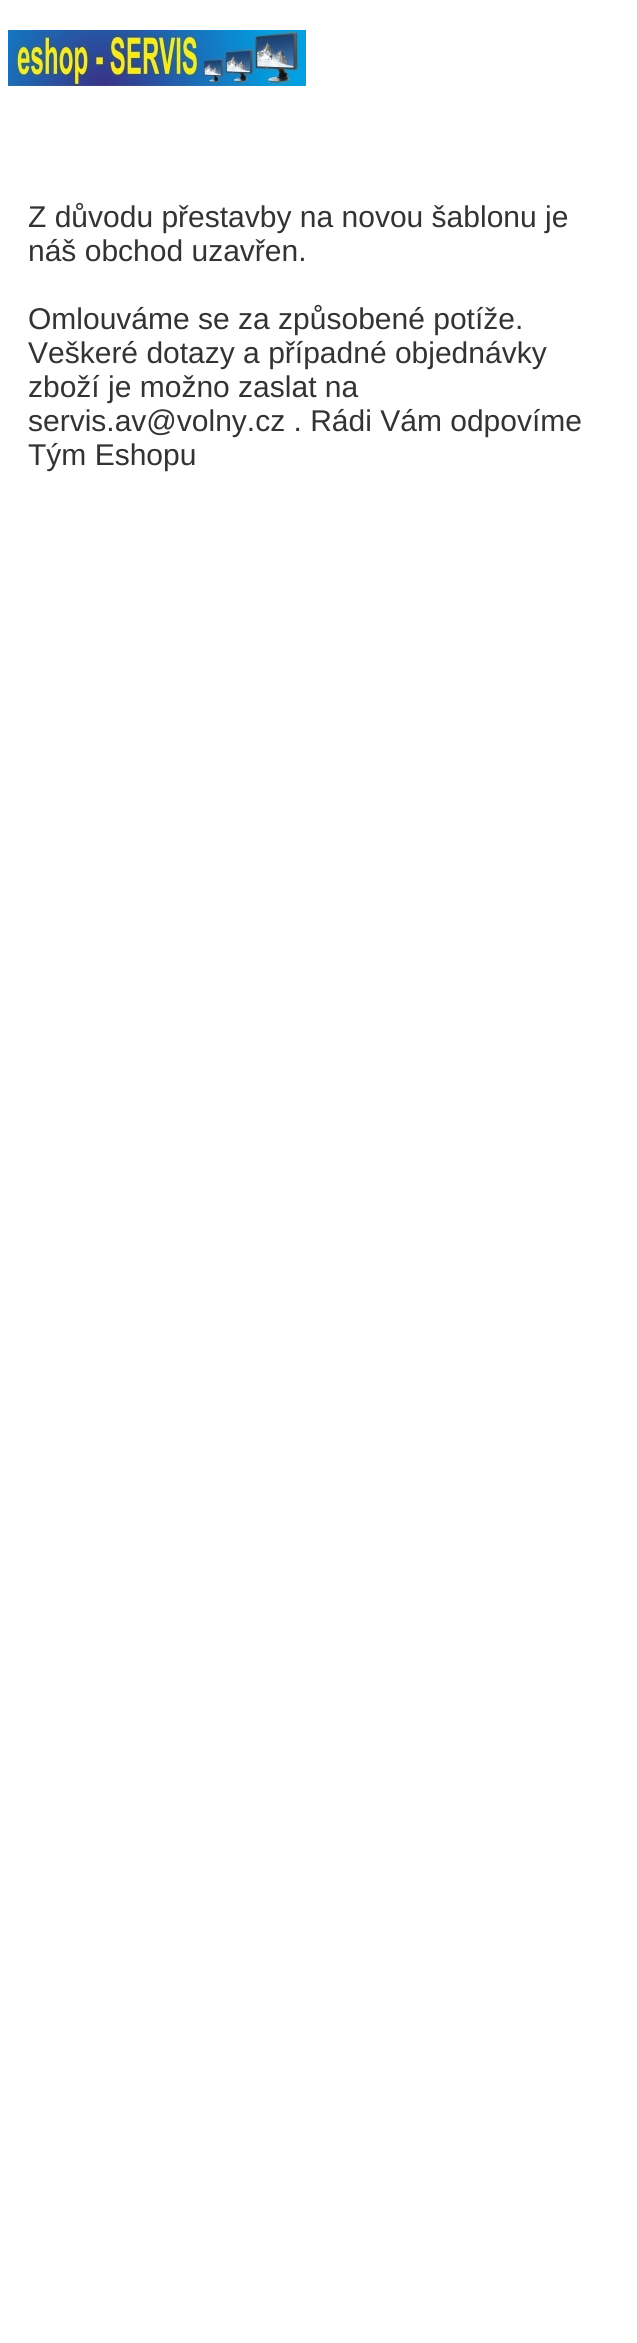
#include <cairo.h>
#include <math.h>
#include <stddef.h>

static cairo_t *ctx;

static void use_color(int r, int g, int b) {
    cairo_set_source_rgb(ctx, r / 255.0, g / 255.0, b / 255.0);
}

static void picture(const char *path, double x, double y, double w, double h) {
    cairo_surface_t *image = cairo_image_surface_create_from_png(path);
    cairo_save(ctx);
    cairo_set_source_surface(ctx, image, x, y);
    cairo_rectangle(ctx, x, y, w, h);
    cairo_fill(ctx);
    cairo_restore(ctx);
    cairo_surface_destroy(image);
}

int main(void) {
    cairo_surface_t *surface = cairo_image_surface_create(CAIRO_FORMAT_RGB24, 637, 2343);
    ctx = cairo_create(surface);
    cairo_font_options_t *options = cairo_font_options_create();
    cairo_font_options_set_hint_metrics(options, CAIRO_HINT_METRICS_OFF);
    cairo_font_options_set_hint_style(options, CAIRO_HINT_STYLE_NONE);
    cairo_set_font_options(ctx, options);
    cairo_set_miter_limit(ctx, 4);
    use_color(255, 255, 255);
    cairo_paint(ctx);
    picture("img1.png", 8, 30, 298, 56);
    cairo_select_font_face(ctx, "Liberation Sans", CAIRO_FONT_SLANT_NORMAL, CAIRO_FONT_WEIGHT_NORMAL);
    cairo_set_font_size(ctx, 30);
    use_color(51, 51, 51);
    cairo_move_to(ctx, 28, 227);
    cairo_show_text(ctx, "Z důvodu přestavby na novou šablonu je");
    cairo_move_to(ctx, 28, 261);
    cairo_show_text(ctx, "náš obchod uzavřen.");
    cairo_move_to(ctx, 28, 329);
    cairo_show_text(ctx, "Omlouváme se za způsobené potíže.");
    cairo_move_to(ctx, 28, 363);
    cairo_show_text(ctx, "Veškeré dotazy a případné objednávky");
    cairo_move_to(ctx, 28, 397);
    cairo_show_text(ctx, "zboží je možno zaslat na");
    cairo_move_to(ctx, 28, 431);
    cairo_show_text(ctx, "servis.av@volny.cz . Rádi Vám odpovíme");
    cairo_move_to(ctx, 28, 465);
    cairo_show_text(ctx, "Tým Eshopu");
    cairo_surface_write_to_png(surface, "result.png");
    cairo_font_options_destroy(options);
    cairo_destroy(ctx);
    cairo_surface_destroy(surface);
    return 0;
}
